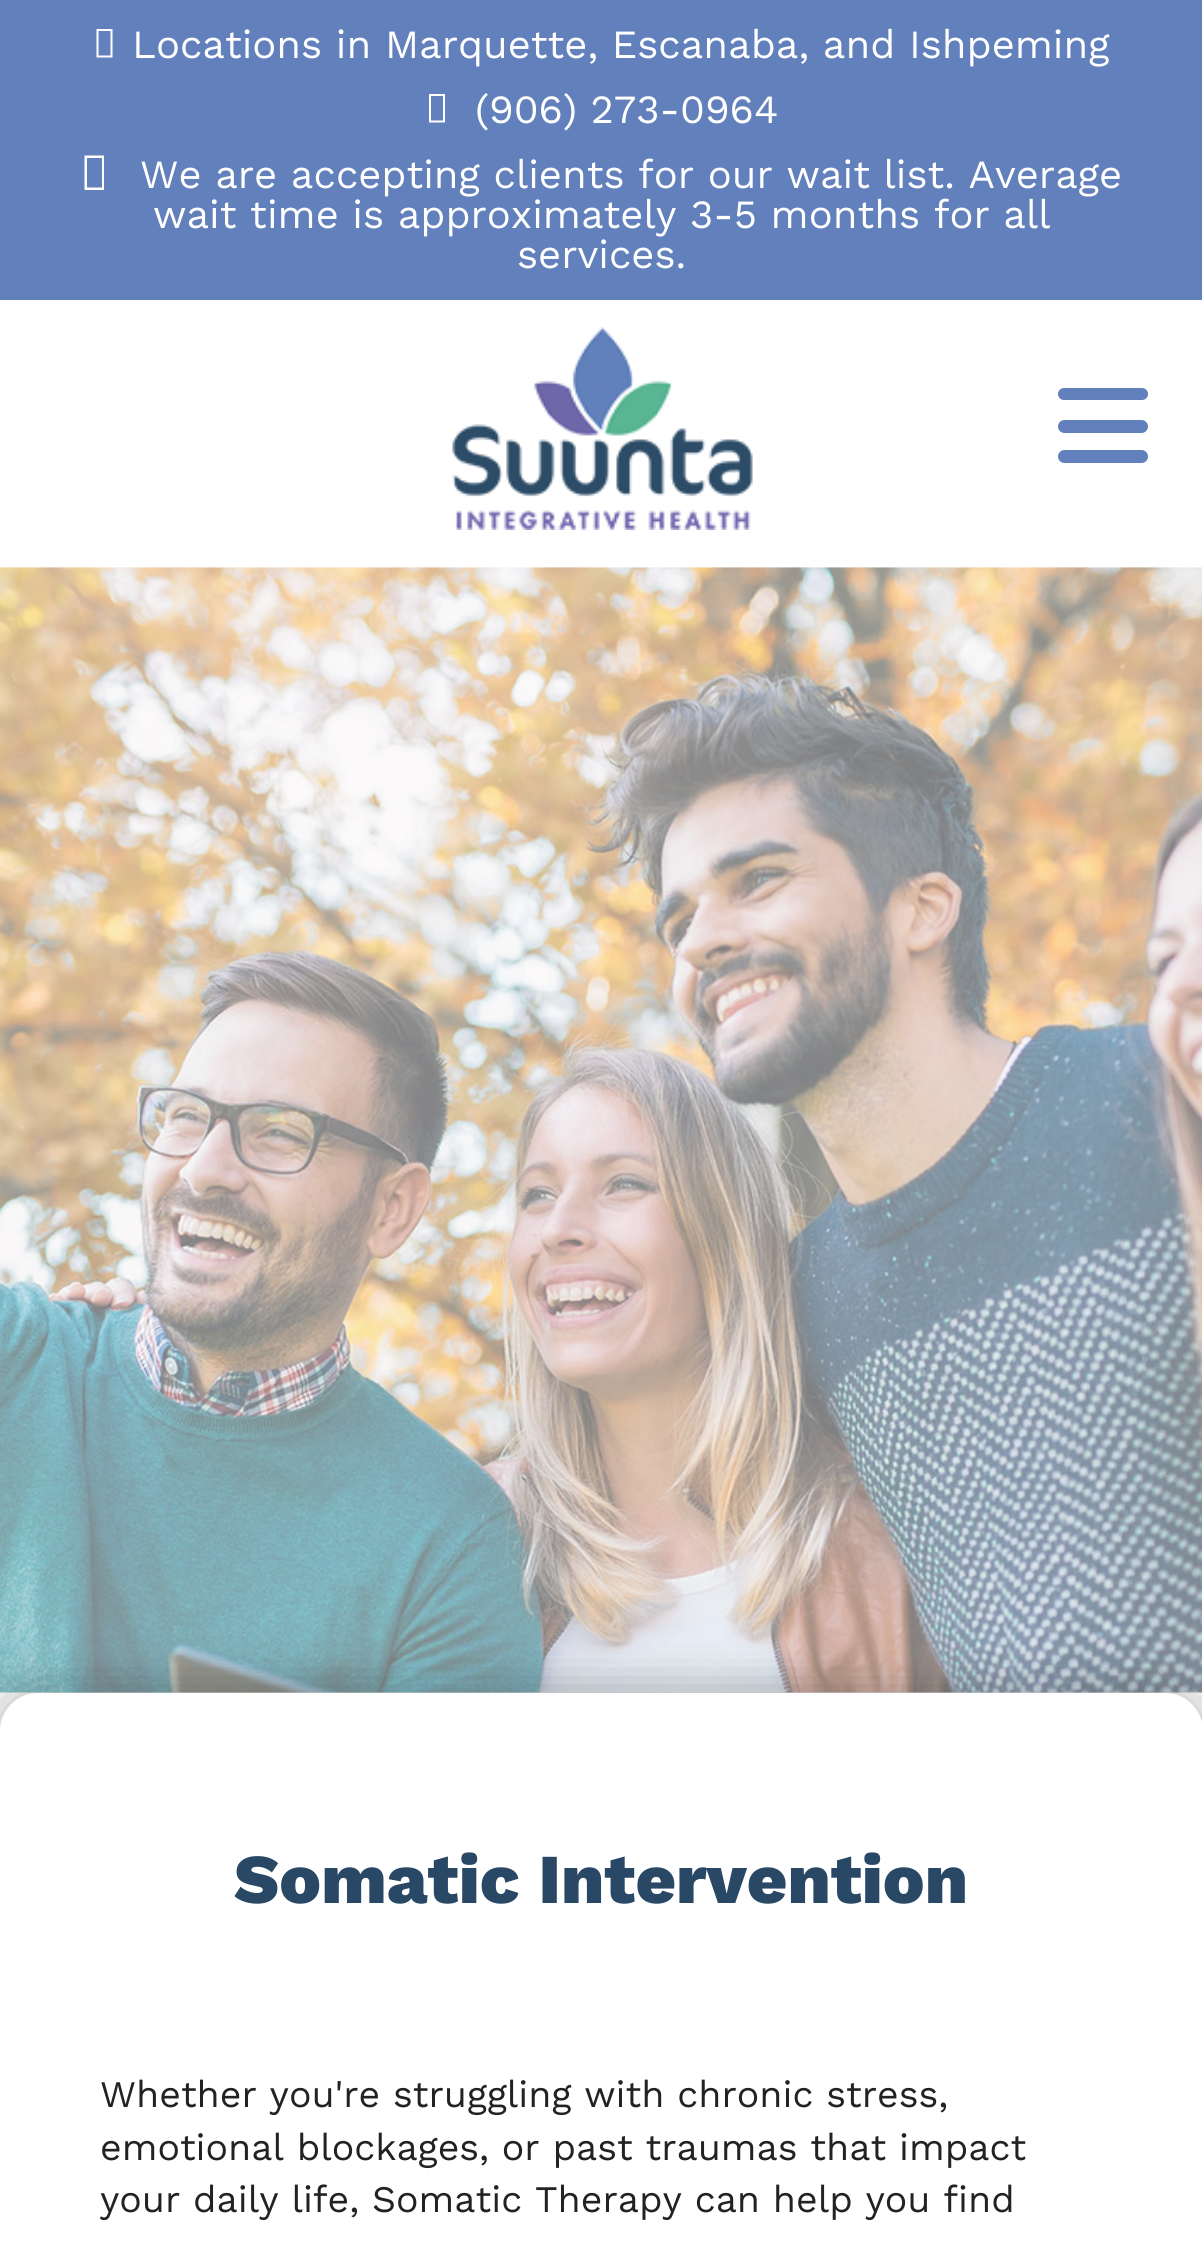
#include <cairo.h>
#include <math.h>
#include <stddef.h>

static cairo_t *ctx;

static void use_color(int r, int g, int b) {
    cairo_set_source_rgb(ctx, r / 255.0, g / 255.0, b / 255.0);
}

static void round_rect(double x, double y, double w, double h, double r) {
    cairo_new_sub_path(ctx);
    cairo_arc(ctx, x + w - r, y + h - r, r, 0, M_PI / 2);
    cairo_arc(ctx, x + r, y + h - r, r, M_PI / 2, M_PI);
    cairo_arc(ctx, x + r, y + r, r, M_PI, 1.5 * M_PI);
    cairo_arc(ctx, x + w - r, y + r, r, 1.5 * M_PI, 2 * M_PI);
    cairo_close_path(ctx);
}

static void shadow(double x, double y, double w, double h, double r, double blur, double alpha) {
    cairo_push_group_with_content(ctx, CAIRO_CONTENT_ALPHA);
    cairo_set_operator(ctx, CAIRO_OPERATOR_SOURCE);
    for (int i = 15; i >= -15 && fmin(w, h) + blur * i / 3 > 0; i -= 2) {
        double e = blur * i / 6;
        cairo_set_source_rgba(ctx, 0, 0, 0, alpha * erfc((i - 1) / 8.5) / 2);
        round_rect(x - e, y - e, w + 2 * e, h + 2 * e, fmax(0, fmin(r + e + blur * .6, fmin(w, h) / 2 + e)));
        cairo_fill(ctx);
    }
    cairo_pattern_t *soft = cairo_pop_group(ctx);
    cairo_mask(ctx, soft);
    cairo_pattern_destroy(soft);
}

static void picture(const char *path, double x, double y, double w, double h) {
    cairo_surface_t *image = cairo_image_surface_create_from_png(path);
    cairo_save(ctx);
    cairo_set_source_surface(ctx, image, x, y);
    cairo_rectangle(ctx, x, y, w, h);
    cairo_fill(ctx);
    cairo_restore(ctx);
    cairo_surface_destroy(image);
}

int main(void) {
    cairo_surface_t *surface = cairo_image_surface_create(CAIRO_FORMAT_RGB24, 1202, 2256);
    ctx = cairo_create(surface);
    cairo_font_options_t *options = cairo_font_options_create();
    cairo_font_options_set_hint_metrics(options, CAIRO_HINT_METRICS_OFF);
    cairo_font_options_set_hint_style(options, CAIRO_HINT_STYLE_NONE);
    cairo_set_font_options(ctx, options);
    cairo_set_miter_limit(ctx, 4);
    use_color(255, 255, 255);
    cairo_paint(ctx);
    use_color(98, 128, 188);
    cairo_rectangle(ctx, 0, 0, 1202, 300);
    cairo_fill(ctx);
    use_color(255, 255, 255);
    cairo_new_path(ctx);
    cairo_move_to(ctx, 96.5, 57.5);
    cairo_line_to(ctx, 96.5, 29);
    cairo_line_to(ctx, 112.5, 29);
    cairo_line_to(ctx, 112.5, 57.5);
    cairo_close_path(ctx);
    cairo_move_to(ctx, 98.5, 55.5);
    cairo_line_to(ctx, 110.5, 55.5);
    cairo_line_to(ctx, 110.5, 31);
    cairo_line_to(ctx, 98.5, 31);
    cairo_close_path(ctx);
    cairo_fill(ctx);
    cairo_select_font_face(ctx, "Work Sans", CAIRO_FONT_SLANT_NORMAL, CAIRO_FONT_WEIGHT_NORMAL);
    cairo_set_font_size(ctx, 40);
    cairo_move_to(ctx, 132, 58);
    cairo_show_text(ctx, "Locations in Marquette, Escanaba, and Ishpeming");
    cairo_new_path(ctx);
    cairo_move_to(ctx, 429, 122.5);
    cairo_line_to(ctx, 429, 94);
    cairo_line_to(ctx, 445, 94);
    cairo_line_to(ctx, 445, 122.5);
    cairo_close_path(ctx);
    cairo_move_to(ctx, 431, 120.5);
    cairo_line_to(ctx, 443, 120.5);
    cairo_line_to(ctx, 443, 96);
    cairo_line_to(ctx, 431, 96);
    cairo_close_path(ctx);
    cairo_fill(ctx);
    cairo_move_to(ctx, 475, 123);
    cairo_show_text(ctx, "(906) 273-0964");
    cairo_new_path(ctx);
    cairo_move_to(ctx, 84.5, 190);
    cairo_line_to(ctx, 84.5, 155.5);
    cairo_line_to(ctx, 104, 155.5);
    cairo_line_to(ctx, 104, 190);
    cairo_close_path(ctx);
    cairo_move_to(ctx, 87, 187.5);
    cairo_line_to(ctx, 102, 187.5);
    cairo_line_to(ctx, 102, 158);
    cairo_line_to(ctx, 87, 158);
    cairo_close_path(ctx);
    cairo_fill(ctx);
    cairo_move_to(ctx, 140, 188);
    cairo_show_text(ctx, "We are accepting clients for our wait list. Average");
    cairo_move_to(ctx, 153, 228);
    cairo_show_text(ctx, "wait time is approximately 3-5 months for all");
    cairo_move_to(ctx, 517, 268);
    cairo_show_text(ctx, "services.");
    picture("img1.png", 452, 327, 301, 203);
    use_color(98, 128, 188);
    round_rect(1058, 388, 90, 12, 6);
    cairo_fill(ctx);
    round_rect(1058, 420, 90, 13, 6.5);
    cairo_fill(ctx);
    round_rect(1058, 450, 90, 13, 6.5);
    cairo_fill(ctx);
    picture("img2.png", 0, 567, 1202, 1126);
    use_color(34, 34, 34);
    shadow(-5, 1688, 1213, 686, 43, 25, 0.34);
    use_color(255, 255, 255);
    round_rect(0, 1693, 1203, 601, 38);
    cairo_fill(ctx);
    cairo_select_font_face(ctx, "Work Sans ExtraBold", CAIRO_FONT_SLANT_NORMAL, CAIRO_FONT_WEIGHT_NORMAL);
    cairo_set_font_size(ctx, 70);
    use_color(41, 72, 101);
    cairo_move_to(ctx, 234, 1903);
    cairo_show_text(ctx, "Somatic Intervention");
    cairo_select_font_face(ctx, "Work Sans", CAIRO_FONT_SLANT_NORMAL, CAIRO_FONT_WEIGHT_NORMAL);
    cairo_set_font_size(ctx, 37.5);
    use_color(34, 34, 34);
    cairo_move_to(ctx, 100, 2107);
    cairo_show_text(ctx, "Whether you're struggling with chronic stress,");
    cairo_move_to(ctx, 100, 2160);
    cairo_show_text(ctx, "emotional blockages, or past traumas that impact");
    cairo_move_to(ctx, 100, 2212);
    cairo_show_text(ctx, "your daily life, Somatic Therapy can help you find");
    cairo_surface_write_to_png(surface, "result.png");
    cairo_font_options_destroy(options);
    cairo_destroy(ctx);
    cairo_surface_destroy(surface);
    return 0;
}
